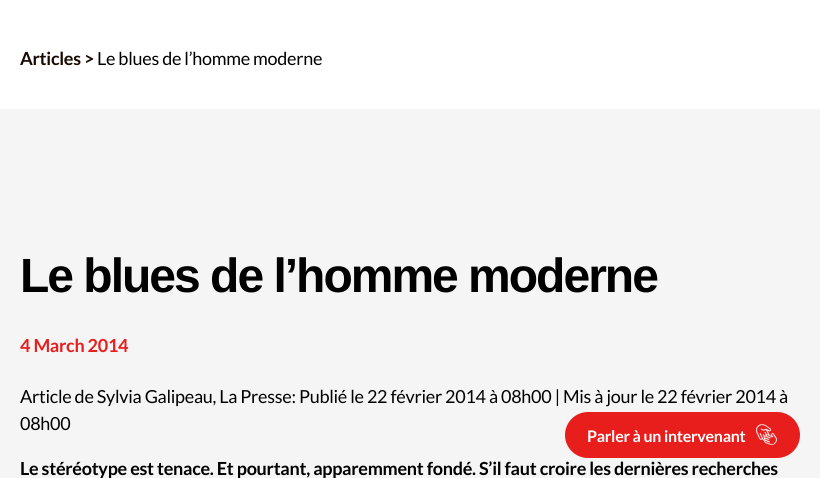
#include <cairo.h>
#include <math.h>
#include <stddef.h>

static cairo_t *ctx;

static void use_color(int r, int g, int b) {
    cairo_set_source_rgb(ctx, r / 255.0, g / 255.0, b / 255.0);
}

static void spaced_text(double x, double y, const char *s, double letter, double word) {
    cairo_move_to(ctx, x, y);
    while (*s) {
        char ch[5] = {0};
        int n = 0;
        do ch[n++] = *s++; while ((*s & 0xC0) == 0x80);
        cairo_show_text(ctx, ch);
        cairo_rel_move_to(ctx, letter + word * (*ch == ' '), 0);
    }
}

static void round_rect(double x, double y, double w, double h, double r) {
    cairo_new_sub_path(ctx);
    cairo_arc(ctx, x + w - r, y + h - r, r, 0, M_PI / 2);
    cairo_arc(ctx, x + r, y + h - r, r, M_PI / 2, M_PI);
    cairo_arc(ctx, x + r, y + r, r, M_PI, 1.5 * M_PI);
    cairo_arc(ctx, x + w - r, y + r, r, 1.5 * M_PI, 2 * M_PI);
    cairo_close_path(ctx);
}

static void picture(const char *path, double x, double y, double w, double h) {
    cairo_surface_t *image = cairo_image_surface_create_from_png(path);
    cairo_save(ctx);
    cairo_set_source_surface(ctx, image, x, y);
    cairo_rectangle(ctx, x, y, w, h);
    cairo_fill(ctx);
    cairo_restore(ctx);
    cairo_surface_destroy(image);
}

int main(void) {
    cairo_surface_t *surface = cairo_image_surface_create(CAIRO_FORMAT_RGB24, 820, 478);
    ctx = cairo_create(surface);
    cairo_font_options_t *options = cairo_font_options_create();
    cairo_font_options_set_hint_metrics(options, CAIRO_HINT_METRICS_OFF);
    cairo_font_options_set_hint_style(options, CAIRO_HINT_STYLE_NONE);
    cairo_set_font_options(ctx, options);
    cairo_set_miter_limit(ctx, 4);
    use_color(255, 255, 255);
    cairo_paint(ctx);
    cairo_select_font_face(ctx, "Lato", CAIRO_FONT_SLANT_NORMAL, CAIRO_FONT_WEIGHT_BOLD);
    cairo_set_font_size(ctx, 18);
    use_color(25, 8, 0);
    spaced_text(20, 65, "Articles >", -0.27, 0);
    cairo_select_font_face(ctx, "Lato", CAIRO_FONT_SLANT_NORMAL, CAIRO_FONT_WEIGHT_NORMAL);
    use_color(0, 0, 0);
    spaced_text(97, 65, "Le blues de l’homme moderne", -0.27, 0);
    use_color(245, 245, 245);
    cairo_rectangle(ctx, 0, 109, 820, 369);
    cairo_fill(ctx);
    cairo_select_font_face(ctx, "Liberation Sans", CAIRO_FONT_SLANT_NORMAL, CAIRO_FONT_WEIGHT_BOLD);
    cairo_set_font_size(ctx, 48);
    use_color(0, 0, 0);
    spaced_text(20, 292, "Le blues de l’homme moderne", -2, 0);
    cairo_select_font_face(ctx, "Lato", CAIRO_FONT_SLANT_NORMAL, CAIRO_FONT_WEIGHT_BOLD);
    cairo_set_font_size(ctx, 18);
    use_color(231, 30, 28);
    spaced_text(20, 352, "4 March 2014", -0.27, 0);
    cairo_select_font_face(ctx, "Lato", CAIRO_FONT_SLANT_NORMAL, CAIRO_FONT_WEIGHT_NORMAL);
    use_color(0, 0, 0);
    spaced_text(20, 403, "Article de Sylvia Galipeau, La Presse: Publié le 22 février 2014 à 08h00 | Mis à jour le 22 février 2014 à", -0.27, 0);
    spaced_text(20, 430, "08h00", -0.27, 0);
    cairo_select_font_face(ctx, "Lato", CAIRO_FONT_SLANT_NORMAL, CAIRO_FONT_WEIGHT_BOLD);
    spaced_text(20, 475, "Le stéréotype est tenace. Et pourtant, apparemment fondé. S’il faut croire les dernières recherches", -0.27, 0);
    use_color(231, 30, 28);
    round_rect(566, 413, 233, 44, 22);
    cairo_fill_preserve(ctx);
    cairo_stroke(ctx);
    cairo_set_font_size(ctx, 16);
    use_color(255, 255, 255);
    spaced_text(587, 442, "Parler à un intervenant", -0.27, 0);
    picture("img1.png", 756, 424, 21, 21);
    cairo_surface_write_to_png(surface, "result.png");
    cairo_font_options_destroy(options);
    cairo_destroy(ctx);
    cairo_surface_destroy(surface);
    return 0;
}
